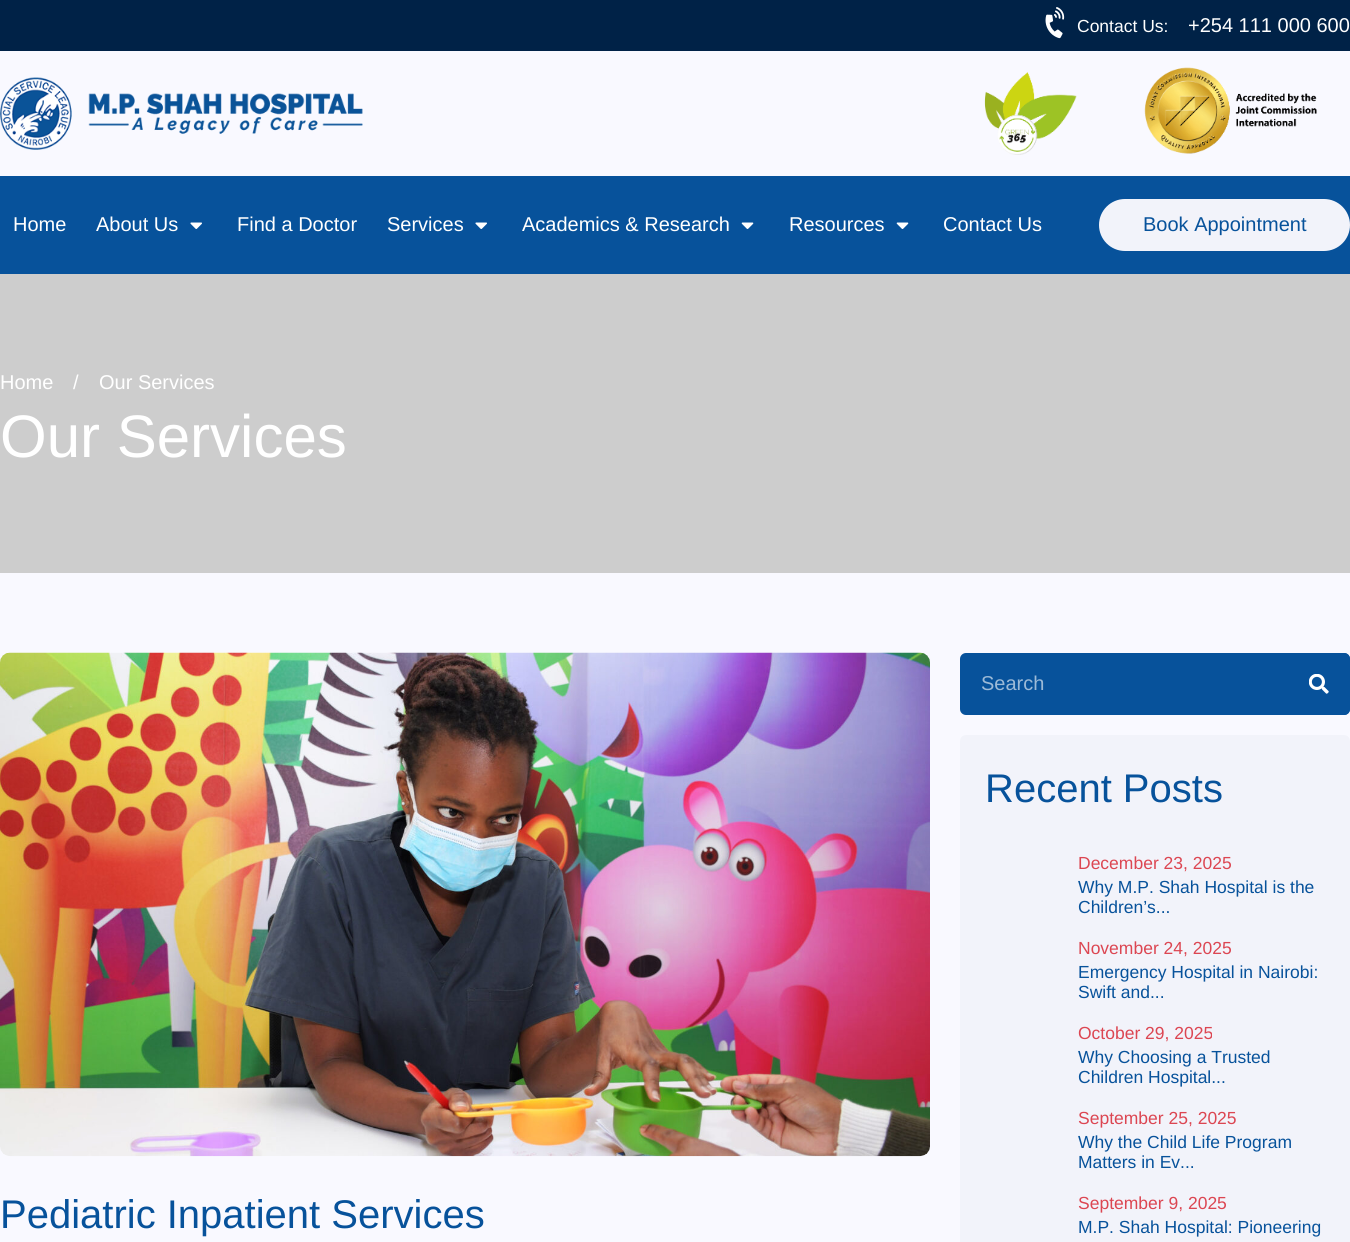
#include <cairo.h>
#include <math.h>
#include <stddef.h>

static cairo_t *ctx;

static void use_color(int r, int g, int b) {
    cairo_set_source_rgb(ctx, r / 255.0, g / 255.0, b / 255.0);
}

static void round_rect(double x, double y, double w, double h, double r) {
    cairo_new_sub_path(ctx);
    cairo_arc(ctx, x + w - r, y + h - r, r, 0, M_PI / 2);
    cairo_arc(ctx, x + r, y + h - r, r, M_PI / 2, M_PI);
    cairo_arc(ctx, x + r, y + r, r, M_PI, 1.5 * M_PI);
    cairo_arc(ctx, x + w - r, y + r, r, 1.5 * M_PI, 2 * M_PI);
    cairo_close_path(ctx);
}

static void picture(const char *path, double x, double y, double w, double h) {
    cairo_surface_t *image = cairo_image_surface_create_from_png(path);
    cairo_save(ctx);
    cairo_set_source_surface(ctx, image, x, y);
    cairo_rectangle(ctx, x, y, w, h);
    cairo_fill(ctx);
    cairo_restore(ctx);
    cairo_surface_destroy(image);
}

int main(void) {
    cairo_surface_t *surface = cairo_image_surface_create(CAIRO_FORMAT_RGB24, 1350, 1242);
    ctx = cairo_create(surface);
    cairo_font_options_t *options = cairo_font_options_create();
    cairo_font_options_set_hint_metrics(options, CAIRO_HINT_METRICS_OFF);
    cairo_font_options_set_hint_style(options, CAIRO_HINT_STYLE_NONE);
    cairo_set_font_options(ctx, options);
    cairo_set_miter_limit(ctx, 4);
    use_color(249, 249, 255);
    cairo_paint(ctx);
    use_color(0, 34, 71);
    cairo_rectangle(ctx, 0, 0, 1350, 51);
    cairo_fill(ctx);
    picture("img1.png", 1045, 7, 20, 32);
    cairo_select_font_face(ctx, "Liberation Sans", CAIRO_FONT_SLANT_NORMAL, CAIRO_FONT_WEIGHT_NORMAL);
    cairo_set_font_size(ctx, 17.5);
    use_color(255, 255, 255);
    cairo_move_to(ctx, 1077, 32);
    cairo_show_text(ctx, "Contact Us:");
    cairo_set_font_size(ctx, 20);
    cairo_move_to(ctx, 1188, 32);
    cairo_show_text(ctx, "+254 111 000 600");
    picture("img2.png", 0, 77, 363, 73);
    picture("img3.png", 984, 72, 93, 83);
    picture("img4.png", 1144, 67, 173, 87);
    use_color(7, 82, 155);
    cairo_rectangle(ctx, 0, 176, 1350, 98);
    cairo_fill(ctx);
    use_color(255, 255, 255);
    cairo_move_to(ctx, 13, 231);
    cairo_show_text(ctx, "Home");
    cairo_move_to(ctx, 96, 231);
    cairo_show_text(ctx, "About Us");
    picture("img5.png", 190, 222, 12, 7);
    cairo_move_to(ctx, 237, 231);
    cairo_show_text(ctx, "Find a Doctor");
    cairo_move_to(ctx, 387, 231);
    cairo_show_text(ctx, "Services");
    picture("img5.png", 475, 222, 12, 7);
    cairo_move_to(ctx, 522, 231);
    cairo_show_text(ctx, "Academics & Research");
    picture("img6.png", 741, 222, 13, 7);
    cairo_move_to(ctx, 789, 231);
    cairo_show_text(ctx, "Resources");
    picture("img6.png", 896, 222, 13, 7);
    cairo_move_to(ctx, 943, 231);
    cairo_show_text(ctx, "Contact Us");
    use_color(242, 243, 250);
    round_rect(1099, 199, 251, 52, 26);
    cairo_fill(ctx);
    use_color(7, 82, 155);
    cairo_move_to(ctx, 1143, 231);
    cairo_show_text(ctx, "Book Appointment");
    use_color(205, 205, 205);
    cairo_rectangle(ctx, 0, 274, 1350, 299);
    cairo_fill(ctx);
    use_color(255, 255, 255);
    cairo_move_to(ctx, 0, 389);
    cairo_show_text(ctx, "Home");
    cairo_move_to(ctx, 73, 389);
    cairo_show_text(ctx, "/");
    cairo_move_to(ctx, 99, 389);
    cairo_show_text(ctx, "Our Services");
    cairo_set_font_size(ctx, 60);
    cairo_move_to(ctx, 0, 457);
    cairo_show_text(ctx, "Our Services");
    picture("img7.png", 0, 652, 930, 505);
    cairo_set_font_size(ctx, 40);
    use_color(7, 82, 155);
    cairo_move_to(ctx, 0, 1228);
    cairo_show_text(ctx, "Pediatric Inpatient Services");
    round_rect(960, 653, 390, 62, 6);
    cairo_fill(ctx);
    cairo_set_font_size(ctx, 20);
    use_color(156, 186, 215);
    cairo_move_to(ctx, 981, 690);
    cairo_show_text(ctx, "Search");
    use_color(7, 82, 155);
    cairo_new_path(ctx);
    cairo_move_to(ctx, 1288, 653);
    cairo_line_to(ctx, 1344, 653);
    cairo_curve_to(ctx, 1347.5, 653, 1350, 655.5, 1350, 659);
    cairo_line_to(ctx, 1350, 709);
    cairo_curve_to(ctx, 1350, 712.5, 1347.5, 715, 1344, 715);
    cairo_line_to(ctx, 1288, 715);
    cairo_close_path(ctx);
    cairo_fill(ctx);
    picture("img8.png", 1309, 674, 20, 20);
    use_color(242, 243, 250);
    round_rect(960, 735, 390, 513, 6);
    cairo_fill(ctx);
    cairo_set_font_size(ctx, 40);
    use_color(7, 82, 155);
    cairo_move_to(ctx, 985, 802);
    cairo_show_text(ctx, "Recent Posts");
    cairo_set_font_size(ctx, 17.5);
    use_color(220, 70, 82);
    cairo_move_to(ctx, 1078, 869);
    cairo_show_text(ctx, "December 23, 2025");
    use_color(7, 82, 155);
    cairo_move_to(ctx, 1078, 893);
    cairo_show_text(ctx, "Why M.P. Shah Hospital is the");
    cairo_move_to(ctx, 1078, 913);
    cairo_show_text(ctx, "Children’s...");
    use_color(220, 70, 82);
    cairo_move_to(ctx, 1078, 954);
    cairo_show_text(ctx, "November 24, 2025");
    use_color(7, 82, 155);
    cairo_move_to(ctx, 1078, 978);
    cairo_show_text(ctx, "Emergency Hospital in Nairobi:");
    cairo_move_to(ctx, 1078, 998);
    cairo_show_text(ctx, "Swift and...");
    use_color(220, 70, 82);
    cairo_move_to(ctx, 1078, 1039);
    cairo_show_text(ctx, "October 29, 2025");
    use_color(7, 82, 155);
    cairo_move_to(ctx, 1078, 1063);
    cairo_show_text(ctx, "Why Choosing a Trusted");
    cairo_move_to(ctx, 1078, 1083);
    cairo_show_text(ctx, "Children Hospital...");
    use_color(220, 70, 82);
    cairo_move_to(ctx, 1078, 1124);
    cairo_show_text(ctx, "September 25, 2025");
    use_color(7, 82, 155);
    cairo_move_to(ctx, 1078, 1148);
    cairo_show_text(ctx, "Why the Child Life Program");
    cairo_move_to(ctx, 1078, 1168);
    cairo_show_text(ctx, "Matters in Ev...");
    use_color(220, 70, 82);
    cairo_move_to(ctx, 1078, 1209);
    cairo_show_text(ctx, "September 9, 2025");
    use_color(7, 82, 155);
    cairo_move_to(ctx, 1078, 1233);
    cairo_show_text(ctx, "M.P. Shah Hospital: Pioneering");
    cairo_surface_write_to_png(surface, "result.png");
    cairo_font_options_destroy(options);
    cairo_destroy(ctx);
    cairo_surface_destroy(surface);
    return 0;
}
